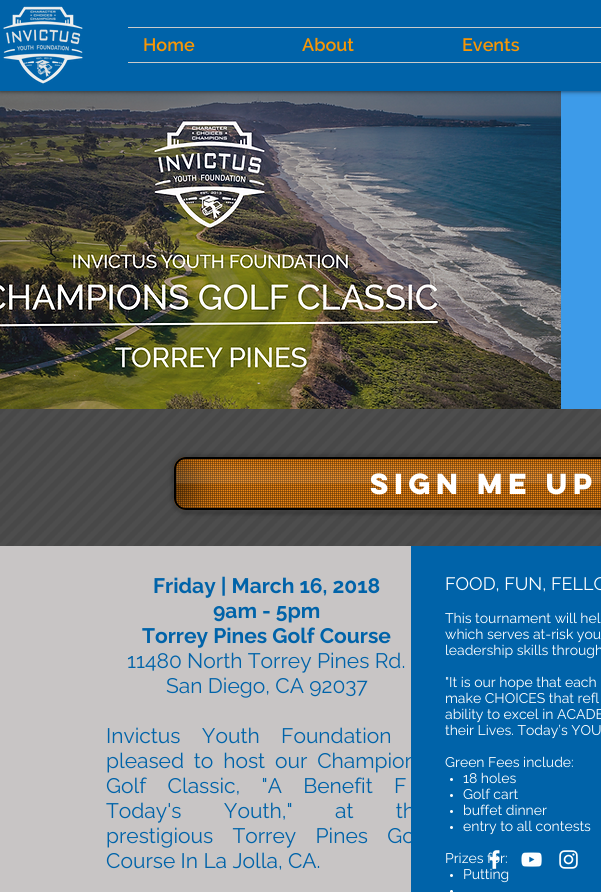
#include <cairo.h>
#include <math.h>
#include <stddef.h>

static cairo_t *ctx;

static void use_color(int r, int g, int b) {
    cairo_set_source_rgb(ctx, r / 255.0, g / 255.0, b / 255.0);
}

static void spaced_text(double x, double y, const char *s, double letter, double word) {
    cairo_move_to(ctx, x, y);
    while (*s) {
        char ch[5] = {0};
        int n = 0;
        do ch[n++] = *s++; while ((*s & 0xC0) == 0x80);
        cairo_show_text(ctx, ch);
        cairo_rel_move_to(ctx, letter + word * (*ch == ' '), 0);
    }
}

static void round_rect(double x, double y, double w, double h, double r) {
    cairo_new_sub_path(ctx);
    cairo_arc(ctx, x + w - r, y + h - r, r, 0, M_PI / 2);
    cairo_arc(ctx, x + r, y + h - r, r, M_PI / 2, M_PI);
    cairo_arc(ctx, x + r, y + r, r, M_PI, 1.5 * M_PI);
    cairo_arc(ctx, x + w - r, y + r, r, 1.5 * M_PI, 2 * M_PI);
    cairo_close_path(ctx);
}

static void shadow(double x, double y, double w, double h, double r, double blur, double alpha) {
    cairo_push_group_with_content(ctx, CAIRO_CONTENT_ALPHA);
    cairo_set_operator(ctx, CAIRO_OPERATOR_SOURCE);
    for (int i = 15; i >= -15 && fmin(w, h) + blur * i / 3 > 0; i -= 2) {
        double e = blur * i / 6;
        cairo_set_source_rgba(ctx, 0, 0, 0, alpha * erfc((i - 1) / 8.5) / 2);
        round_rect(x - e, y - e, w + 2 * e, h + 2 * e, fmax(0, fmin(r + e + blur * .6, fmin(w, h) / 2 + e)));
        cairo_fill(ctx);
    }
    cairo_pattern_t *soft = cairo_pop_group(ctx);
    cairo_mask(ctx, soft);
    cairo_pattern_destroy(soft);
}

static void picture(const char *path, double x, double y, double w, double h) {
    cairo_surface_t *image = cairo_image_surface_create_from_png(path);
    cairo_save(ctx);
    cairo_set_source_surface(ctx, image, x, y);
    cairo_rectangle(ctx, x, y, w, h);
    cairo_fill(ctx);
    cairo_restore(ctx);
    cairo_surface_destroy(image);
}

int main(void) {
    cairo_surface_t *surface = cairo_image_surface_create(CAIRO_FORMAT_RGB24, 601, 892);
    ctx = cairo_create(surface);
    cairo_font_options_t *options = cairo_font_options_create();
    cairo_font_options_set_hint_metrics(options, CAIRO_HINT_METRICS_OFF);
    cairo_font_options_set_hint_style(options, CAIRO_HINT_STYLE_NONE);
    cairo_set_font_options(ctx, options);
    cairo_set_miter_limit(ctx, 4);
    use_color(51, 51, 51);
    cairo_paint(ctx);
    picture("img3.png", 0, 91, 601, 455);
    picture("img2.png", 0, 91, 561, 318);
    use_color(61, 155, 233);
    cairo_rectangle(ctx, 561, 91, 40, 318);
    cairo_fill(ctx);
    use_color(0, 0, 0);
    shadow(0, 0, 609, 91, 0, 2.5, 0.7);
    use_color(0, 99, 169);
    cairo_rectangle(ctx, 0, 0, 601, 91);
    cairo_fill(ctx);
    picture("img1.png", 3, 6, 80, 78);
    use_color(202, 202, 202);
    cairo_rectangle(ctx, 128, 27, 473, 1);
    cairo_fill(ctx);
    cairo_rectangle(ctx, 128, 62, 473, 1);
    cairo_fill(ctx);
    cairo_select_font_face(ctx, "Raleway SemiBold", CAIRO_FONT_SLANT_NORMAL, CAIRO_FONT_WEIGHT_NORMAL);
    cairo_set_font_size(ctx, 18);
    use_color(247, 150, 5);
    cairo_move_to(ctx, 143, 51);
    cairo_show_text(ctx, "Home");
    cairo_move_to(ctx, 302, 51);
    cairo_show_text(ctx, "About");
    cairo_move_to(ctx, 462, 51);
    cairo_show_text(ctx, "Events");
    use_color(255, 255, 255);
    shadow(175, 458, 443, 53, 12, 1.5, 0.3);
    use_color(0, 0, 0);
    shadow(174, 457, 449, 55, 13, 3, 0.6);
    use_color(239, 134, 20);
    round_rect(174, 457, 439, 53, 12);
    cairo_fill(ctx);
    picture("img4.png", 174, 457, 427, 53);
    round_rect(175, 458, 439, 51, 11);
    use_color(0, 0, 0);
    cairo_stroke(ctx);
    picture("img5.png", 176, 459, 50, 49);
    cairo_select_font_face(ctx, "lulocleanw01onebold", CAIRO_FONT_SLANT_NORMAL, CAIRO_FONT_WEIGHT_BOLD);
    cairo_set_font_size(ctx, 26);
    use_color(255, 255, 255);
    cairo_move_to(ctx, 370, 494);
    cairo_show_text(ctx, "Sign me up");
    picture("img6.png", 176, 463, 425, 21);
    use_color(200, 197, 197);
    cairo_rectangle(ctx, 0, 546, 411, 346);
    cairo_fill(ctx);
    cairo_select_font_face(ctx, "Raleway", CAIRO_FONT_SLANT_NORMAL, CAIRO_FONT_WEIGHT_BOLD);
    cairo_set_font_size(ctx, 21);
    use_color(0, 99, 169);
    cairo_move_to(ctx, 153, 593);
    cairo_show_text(ctx, "Friday | March 16, 2018");
    cairo_move_to(ctx, 213, 618);
    cairo_show_text(ctx, "9am - 5pm");
    cairo_move_to(ctx, 142, 643);
    cairo_show_text(ctx, "Torrey Pines Golf Course");
    cairo_select_font_face(ctx, "Raleway", CAIRO_FONT_SLANT_NORMAL, CAIRO_FONT_WEIGHT_NORMAL);
    cairo_move_to(ctx, 127, 668);
    cairo_show_text(ctx, "11480 North Torrey Pines Rd.");
    cairo_move_to(ctx, 166, 693);
    cairo_show_text(ctx, "San Diego, CA 92037");
    spaced_text(106, 743, "Invictus Youth Foundation", 0, 16);
    spaced_text(106, 768, "pleased to host our Champion", 0, 4.5);
    spaced_text(106, 793, "Golf Classic, \"A Benefit F", 0, 16);
    spaced_text(106, 818, "Today's Youth,\" at th", 0, 37);
    spaced_text(106, 843, "prestigious Torrey Pines Go", 0, 14);
    cairo_move_to(ctx, 106, 868);
    cairo_show_text(ctx, "Course In La Jolla, CA.");
    cairo_rectangle(ctx, 411, 546, 190, 346);
    cairo_fill(ctx);
    cairo_set_font_size(ctx, 18);
    use_color(255, 255, 255);
    cairo_move_to(ctx, 445, 590);
    cairo_show_text(ctx, "FOOD, FUN, FELLO");
    cairo_set_font_size(ctx, 14);
    cairo_move_to(ctx, 445, 623);
    cairo_show_text(ctx, "This tournament will hel");
    cairo_move_to(ctx, 445, 639);
    cairo_show_text(ctx, "which serves at-risk you");
    cairo_move_to(ctx, 445, 655);
    cairo_show_text(ctx, "leadership skills through");
    cairo_move_to(ctx, 445, 687);
    cairo_show_text(ctx, "\"It is our hope that each");
    cairo_move_to(ctx, 445, 703);
    cairo_show_text(ctx, "make CHOICES that refl");
    cairo_move_to(ctx, 445, 719);
    cairo_show_text(ctx, "ability to excel in ACADE");
    cairo_move_to(ctx, 445, 735);
    cairo_show_text(ctx, "their Lives. Today’s YOU");
    cairo_move_to(ctx, 445, 767);
    cairo_show_text(ctx, "Green Fees include:");
    cairo_new_path(ctx);
    cairo_arc(ctx, 451.5, 779.5, 1.5, 0, 2 * M_PI);
    cairo_fill(ctx);
    cairo_move_to(ctx, 463, 783);
    cairo_show_text(ctx, "18 holes");
    cairo_new_path(ctx);
    cairo_arc(ctx, 451.5, 795.5, 1.5, 0, 2 * M_PI);
    cairo_fill(ctx);
    cairo_move_to(ctx, 463, 799);
    cairo_show_text(ctx, "Golf cart");
    cairo_new_path(ctx);
    cairo_arc(ctx, 451.5, 811.5, 1.5, 0, 2 * M_PI);
    cairo_fill(ctx);
    cairo_move_to(ctx, 463, 815);
    cairo_show_text(ctx, "buffet dinner");
    cairo_new_path(ctx);
    cairo_arc(ctx, 451.5, 827.5, 1.5, 0, 2 * M_PI);
    cairo_fill(ctx);
    cairo_move_to(ctx, 463, 831);
    cairo_show_text(ctx, "entry to all contests");
    cairo_move_to(ctx, 445, 863);
    cairo_show_text(ctx, "Prizes for:");
    cairo_new_path(ctx);
    cairo_arc(ctx, 451.5, 875.5, 1.5, 0, 2 * M_PI);
    cairo_fill(ctx);
    cairo_move_to(ctx, 463, 879);
    cairo_show_text(ctx, "Putting");
    cairo_new_path(ctx);
    cairo_arc(ctx, 451.5, 891.5, 1.5, 0, 2 * M_PI);
    cairo_fill(ctx);
    picture("img7.png", 489, 850, 11, 19);
    picture("img8.png", 521, 852, 21, 15);
    picture("img9.png", 559, 850, 19, 19);
    cairo_surface_write_to_png(surface, "result.png");
    cairo_font_options_destroy(options);
    cairo_destroy(ctx);
    cairo_surface_destroy(surface);
    return 0;
}
